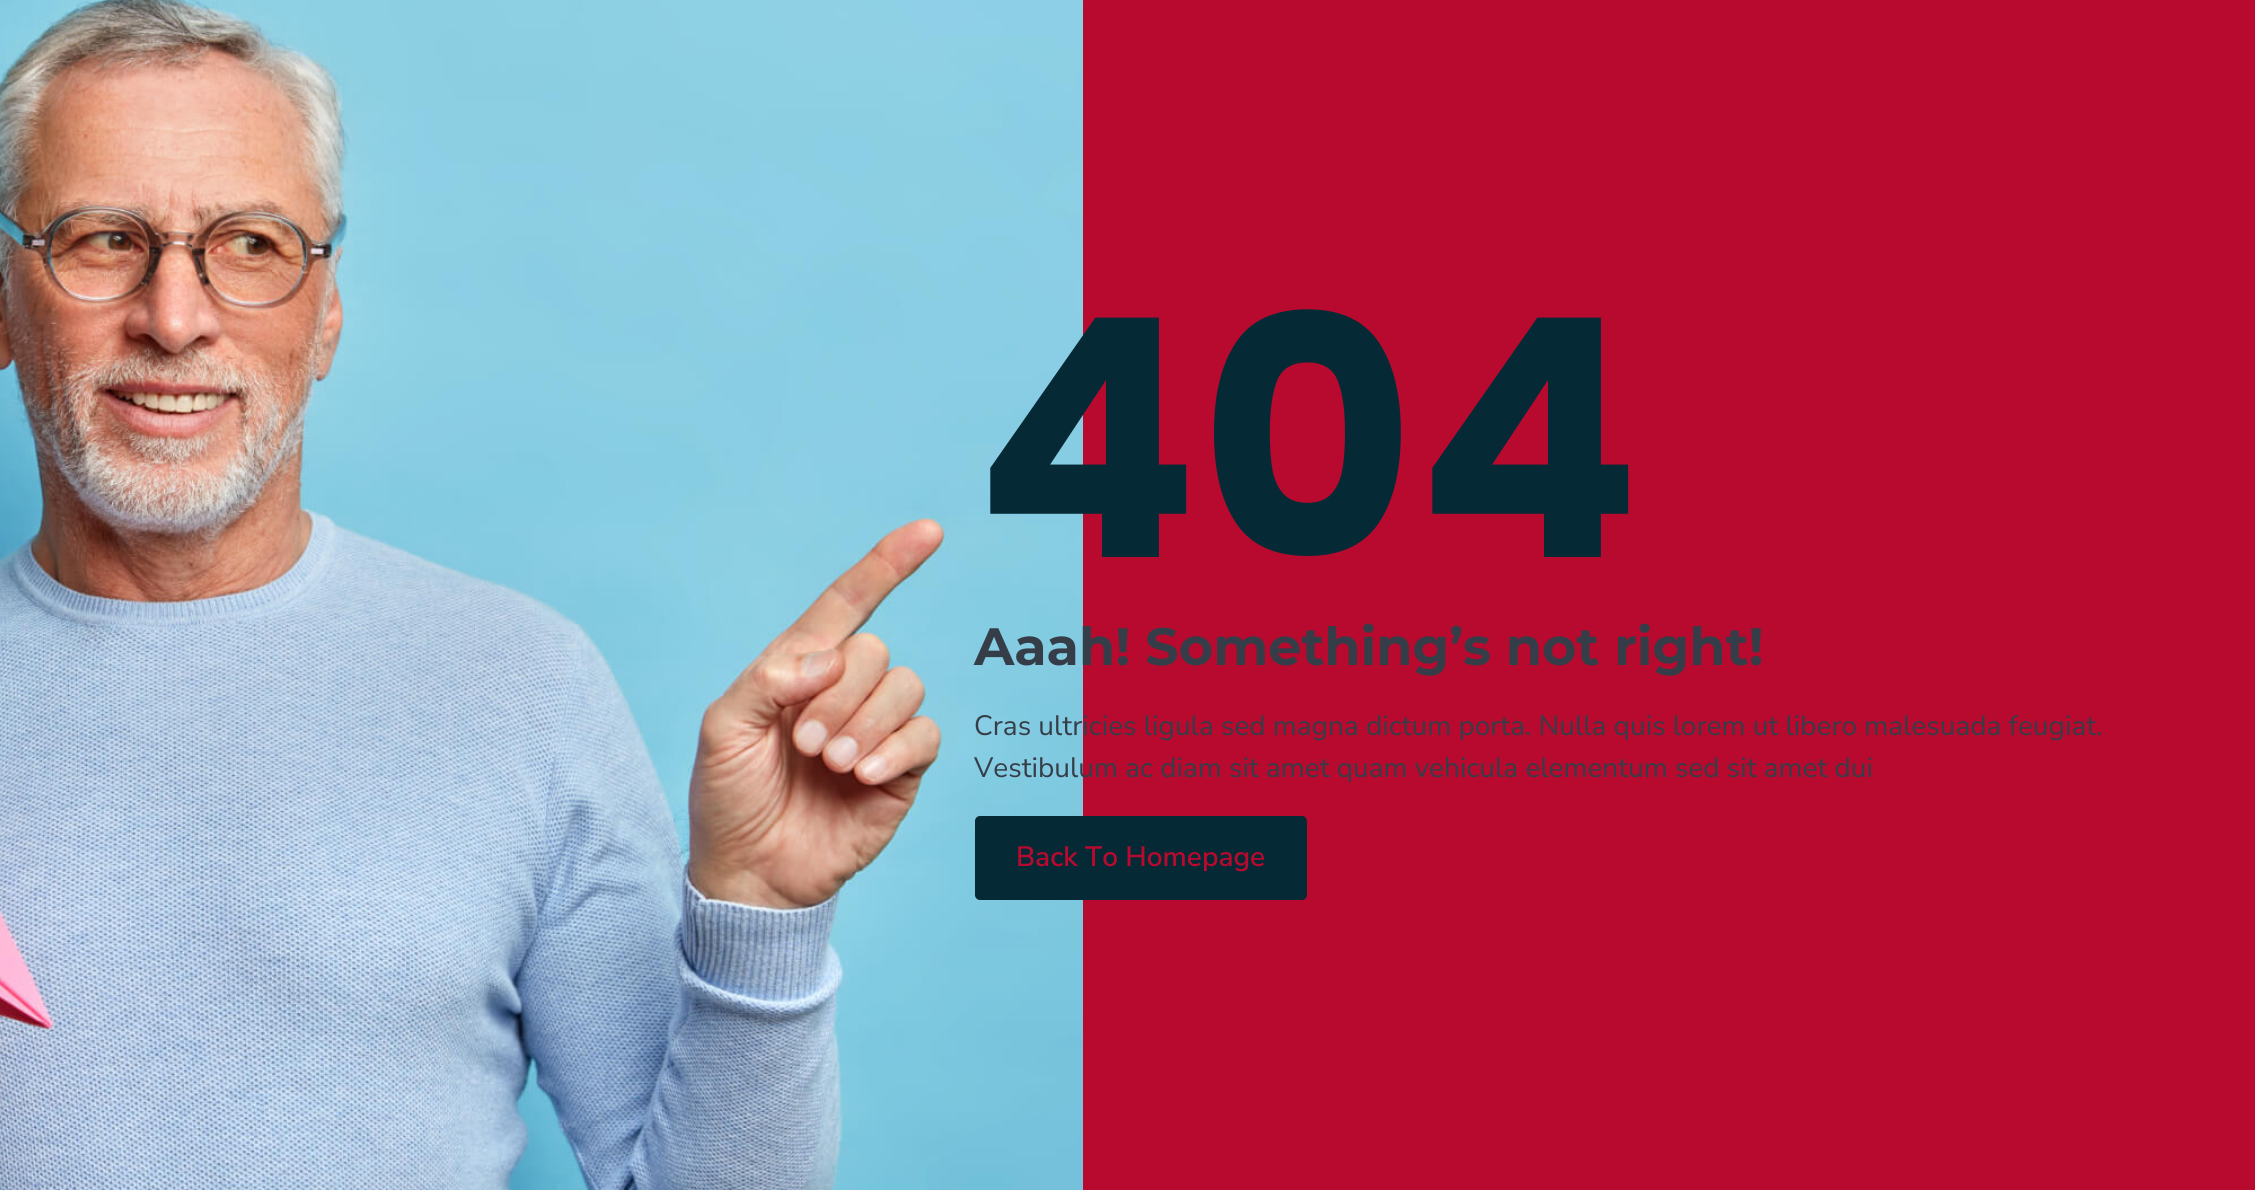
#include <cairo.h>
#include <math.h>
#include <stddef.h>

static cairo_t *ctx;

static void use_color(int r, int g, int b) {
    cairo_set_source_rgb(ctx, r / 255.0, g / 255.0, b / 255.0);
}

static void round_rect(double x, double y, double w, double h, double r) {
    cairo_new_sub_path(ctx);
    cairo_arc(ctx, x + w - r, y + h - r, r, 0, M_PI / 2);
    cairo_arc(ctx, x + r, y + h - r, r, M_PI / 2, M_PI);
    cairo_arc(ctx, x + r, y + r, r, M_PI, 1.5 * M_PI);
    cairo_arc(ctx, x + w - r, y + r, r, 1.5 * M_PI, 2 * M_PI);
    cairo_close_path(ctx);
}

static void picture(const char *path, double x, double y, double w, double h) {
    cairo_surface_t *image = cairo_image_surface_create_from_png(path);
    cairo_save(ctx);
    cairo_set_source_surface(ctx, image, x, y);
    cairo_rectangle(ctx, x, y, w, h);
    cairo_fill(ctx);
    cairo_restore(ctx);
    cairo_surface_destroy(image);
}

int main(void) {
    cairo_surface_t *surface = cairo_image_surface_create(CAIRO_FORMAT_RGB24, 2255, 1190);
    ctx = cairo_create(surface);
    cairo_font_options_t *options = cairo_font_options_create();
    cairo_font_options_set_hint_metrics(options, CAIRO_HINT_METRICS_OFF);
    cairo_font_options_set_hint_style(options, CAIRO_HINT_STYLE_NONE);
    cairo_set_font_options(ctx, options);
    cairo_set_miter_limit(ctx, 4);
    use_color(255, 255, 255);
    cairo_paint(ctx);
    picture("img1.png", 0, 0, 1083, 1190);
    use_color(184, 9, 46);
    cairo_rectangle(ctx, 1083, 0, 1172, 1190);
    cairo_fill(ctx);
    cairo_select_font_face(ctx, "Poppins", CAIRO_FONT_SLANT_NORMAL, CAIRO_FONT_WEIGHT_BOLD);
    cairo_set_font_size(ctx, 332.5);
    use_color(6, 42, 53);
    cairo_move_to(ctx, 974, 557);
    cairo_show_text(ctx, "404");
    cairo_select_font_face(ctx, "Montserrat", CAIRO_FONT_SLANT_NORMAL, CAIRO_FONT_WEIGHT_BOLD);
    cairo_set_font_size(ctx, 52.5);
    use_color(53, 61, 72);
    cairo_move_to(ctx, 974, 665);
    cairo_show_text(ctx, "Aaah! Something’s not right!");
    cairo_select_font_face(ctx, "Nunito Sans", CAIRO_FONT_SLANT_NORMAL, CAIRO_FONT_WEIGHT_NORMAL);
    cairo_set_font_size(ctx, 28);
    cairo_move_to(ctx, 974, 735);
    cairo_show_text(ctx, "Cras ultricies ligula sed magna dictum porta. Nulla quis lorem ut libero malesuada feugiat.");
    cairo_move_to(ctx, 974, 777);
    cairo_show_text(ctx, "Vestibulum ac diam sit amet quam vehicula elementum sed sit amet dui");
    use_color(6, 42, 53);
    round_rect(975, 816, 332, 84, 5);
    cairo_fill(ctx);
    cairo_select_font_face(ctx, "Nunito Sans SemiBold", CAIRO_FONT_SLANT_NORMAL, CAIRO_FONT_WEIGHT_NORMAL);
    use_color(184, 9, 46);
    cairo_move_to(ctx, 1016, 866);
    cairo_show_text(ctx, "Back To Homepage");
    cairo_surface_write_to_png(surface, "result.png");
    cairo_font_options_destroy(options);
    cairo_destroy(ctx);
    cairo_surface_destroy(surface);
    return 0;
}
